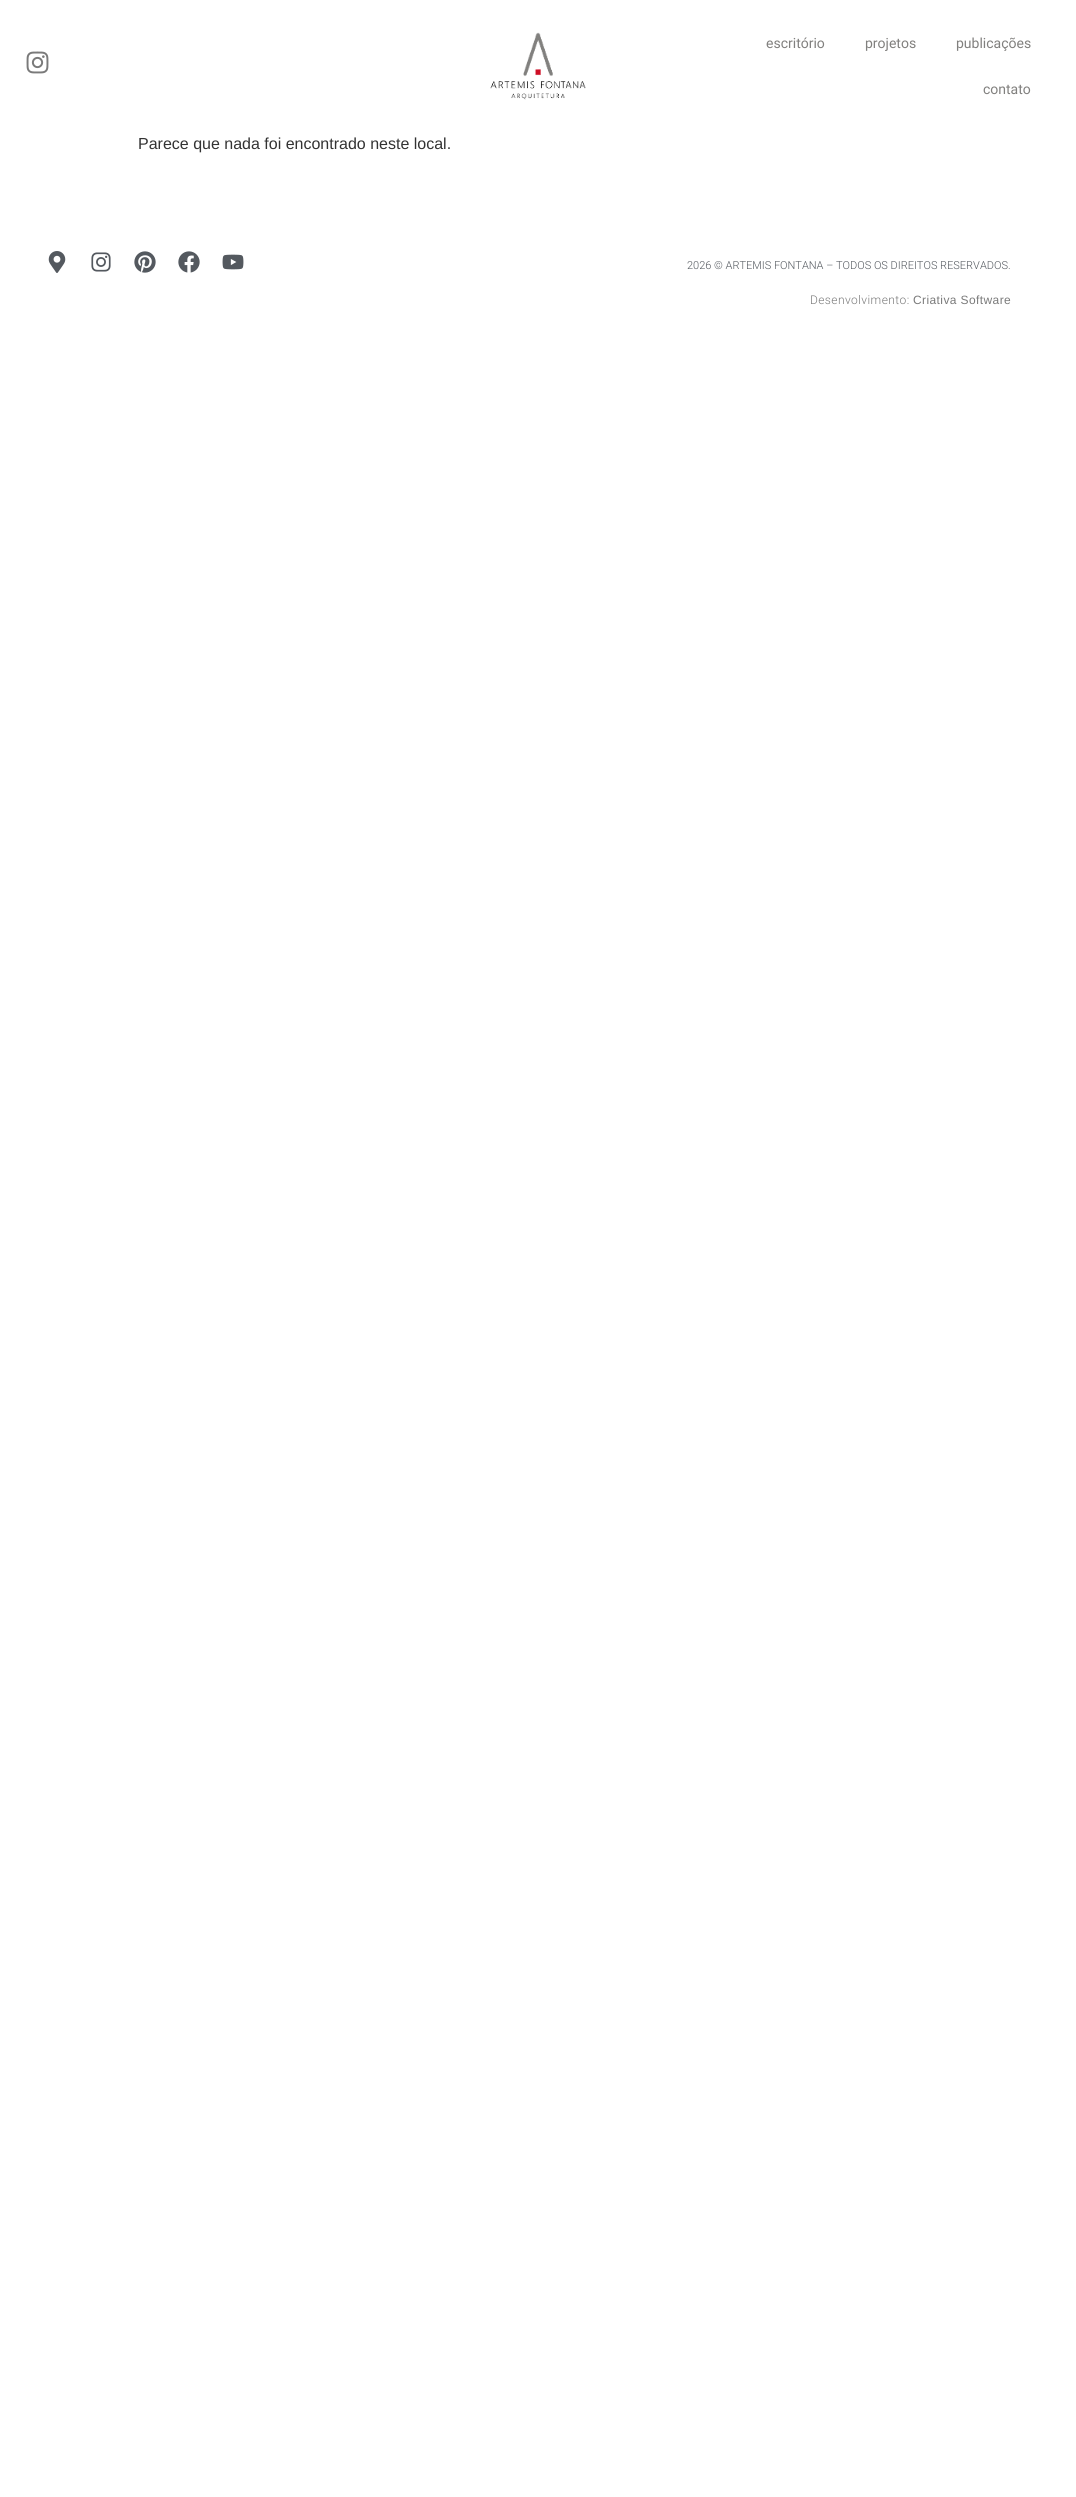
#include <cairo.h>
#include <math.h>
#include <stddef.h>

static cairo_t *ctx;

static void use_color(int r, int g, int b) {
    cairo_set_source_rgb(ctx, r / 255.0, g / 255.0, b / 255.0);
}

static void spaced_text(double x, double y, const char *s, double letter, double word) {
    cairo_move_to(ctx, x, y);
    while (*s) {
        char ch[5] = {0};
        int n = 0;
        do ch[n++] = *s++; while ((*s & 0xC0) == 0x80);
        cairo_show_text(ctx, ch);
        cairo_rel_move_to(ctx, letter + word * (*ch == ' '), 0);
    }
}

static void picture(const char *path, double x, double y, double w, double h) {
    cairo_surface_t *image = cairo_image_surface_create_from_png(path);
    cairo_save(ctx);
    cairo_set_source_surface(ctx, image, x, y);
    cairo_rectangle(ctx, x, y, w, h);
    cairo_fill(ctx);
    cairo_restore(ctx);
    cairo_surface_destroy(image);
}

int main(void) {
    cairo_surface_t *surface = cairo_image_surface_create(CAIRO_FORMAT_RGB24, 1076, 2497);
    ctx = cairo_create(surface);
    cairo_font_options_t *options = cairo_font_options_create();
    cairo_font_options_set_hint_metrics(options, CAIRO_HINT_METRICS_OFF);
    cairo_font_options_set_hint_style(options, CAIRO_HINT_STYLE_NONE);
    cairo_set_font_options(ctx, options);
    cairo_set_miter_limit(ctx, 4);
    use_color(255, 255, 255);
    cairo_paint(ctx);
    picture("img1.png", 26, 51, 23, 23);
    picture("img2.png", 490, 32, 96, 68);
    cairo_select_font_face(ctx, "Roboto", CAIRO_FONT_SLANT_NORMAL, CAIRO_FONT_WEIGHT_NORMAL);
    cairo_set_font_size(ctx, 14);
    use_color(129, 128, 126);
    cairo_move_to(ctx, 766, 48);
    cairo_show_text(ctx, "escritório");
    cairo_move_to(ctx, 865, 48);
    cairo_show_text(ctx, "projetos");
    cairo_move_to(ctx, 956, 48);
    cairo_show_text(ctx, "publicações");
    cairo_move_to(ctx, 983, 94);
    cairo_show_text(ctx, "contato");
    cairo_select_font_face(ctx, "Liberation Sans", CAIRO_FONT_SLANT_NORMAL, CAIRO_FONT_WEIGHT_NORMAL);
    cairo_set_font_size(ctx, 16);
    use_color(51, 51, 51);
    cairo_move_to(ctx, 138, 149);
    cairo_show_text(ctx, "Parece que nada foi encontrado neste local.");
    picture("img3.png", 48, 251, 18, 22);
    picture("img4.png", 91, 252, 20, 20);
    picture("img5.png", 134, 251, 22, 22);
    picture("img6.png", 178, 251, 22, 22);
    picture("img7.png", 222, 254, 22, 16);
    cairo_select_font_face(ctx, "Roboto Light", CAIRO_FONT_SLANT_NORMAL, CAIRO_FONT_WEIGHT_NORMAL);
    cairo_set_font_size(ctx, 11);
    use_color(84, 89, 95);
    cairo_move_to(ctx, 687, 269);
    cairo_show_text(ctx, "2026 © ARTEMIS FONTANA – TODOS OS DIREITOS RESERVADOS.");
    cairo_set_font_size(ctx, 12);
    use_color(122, 122, 122);
    spaced_text(810, 304, "Desenvolvimento:", 0.4, 0);
    cairo_select_font_face(ctx, "Liberation Sans", CAIRO_FONT_SLANT_NORMAL, CAIRO_FONT_WEIGHT_NORMAL);
    spaced_text(913, 304, "Criativa Software", 0.4, 0);
    cairo_surface_write_to_png(surface, "result.png");
    cairo_font_options_destroy(options);
    cairo_destroy(ctx);
    cairo_surface_destroy(surface);
    return 0;
}
